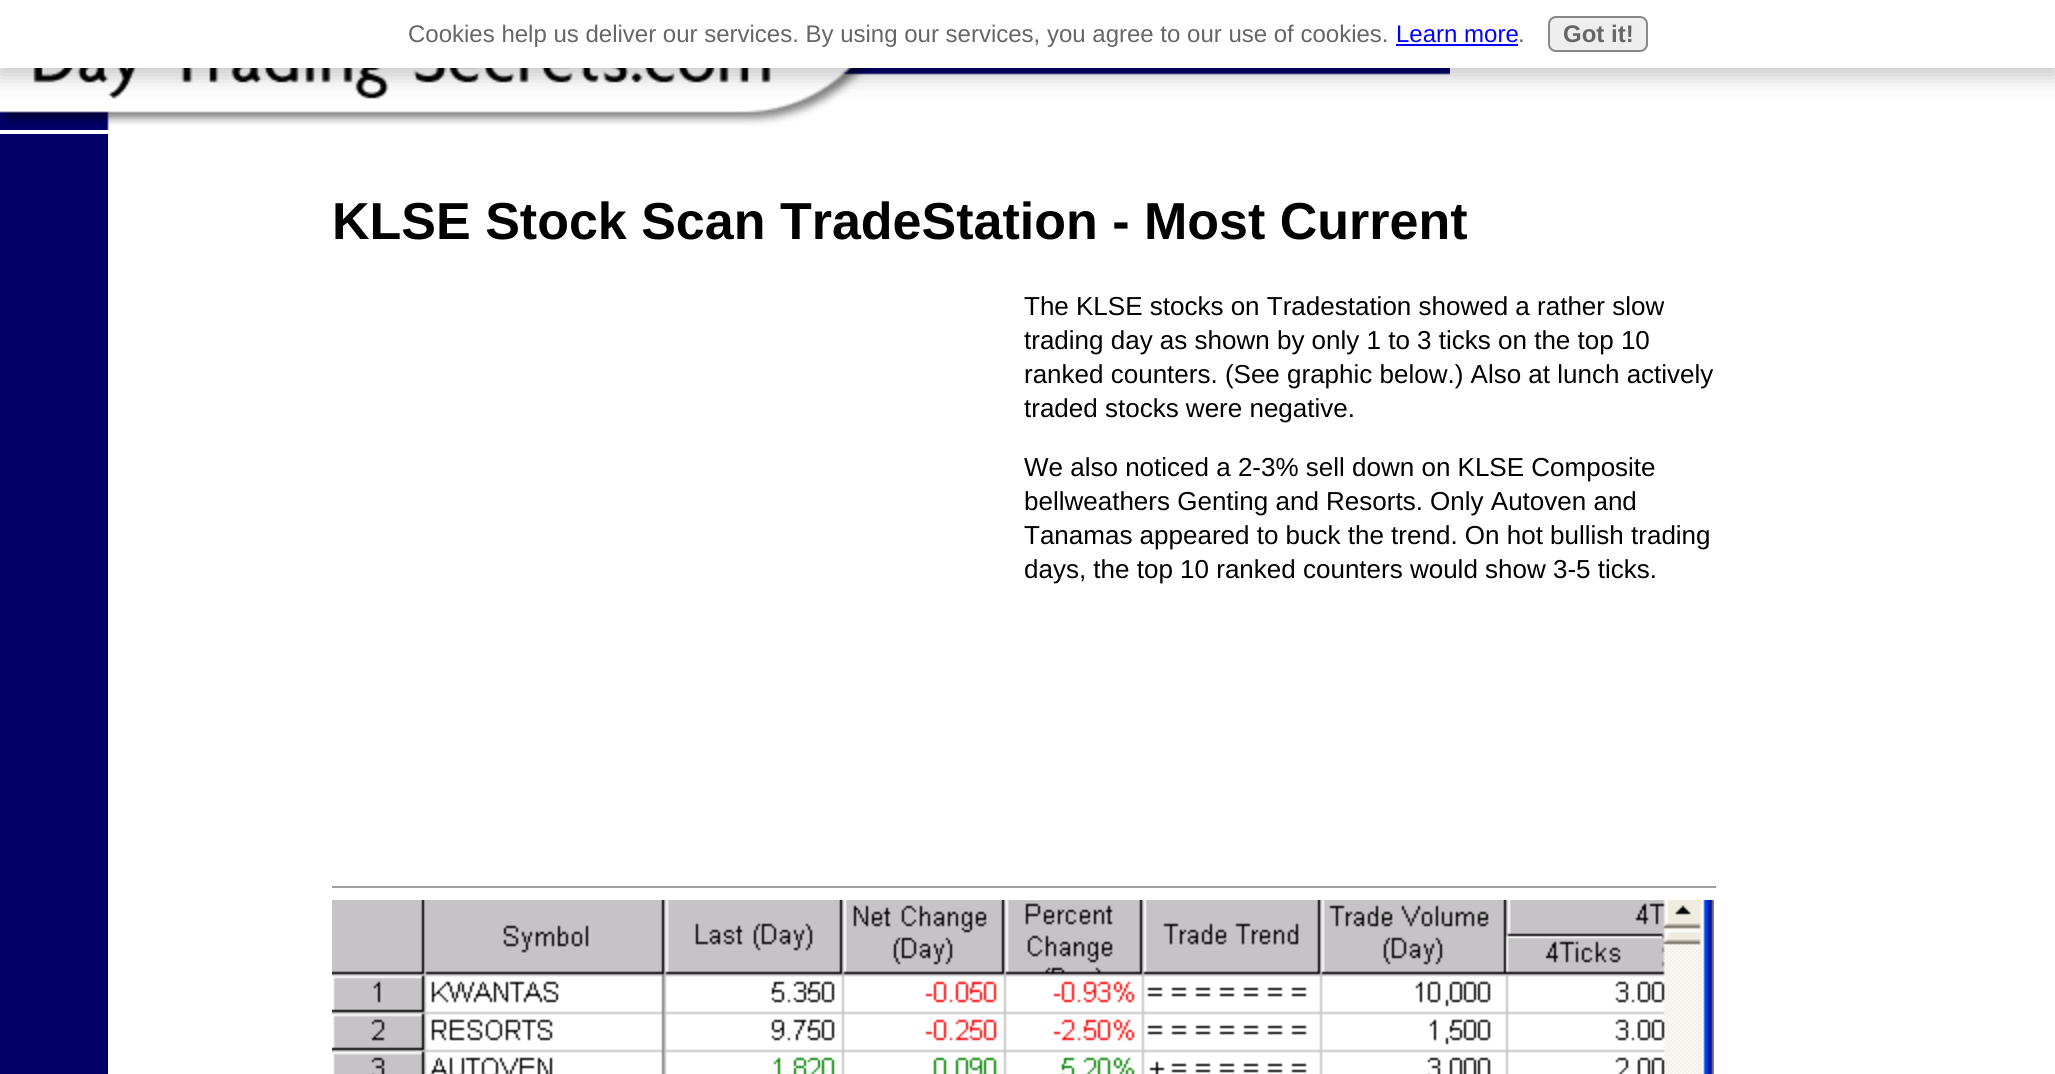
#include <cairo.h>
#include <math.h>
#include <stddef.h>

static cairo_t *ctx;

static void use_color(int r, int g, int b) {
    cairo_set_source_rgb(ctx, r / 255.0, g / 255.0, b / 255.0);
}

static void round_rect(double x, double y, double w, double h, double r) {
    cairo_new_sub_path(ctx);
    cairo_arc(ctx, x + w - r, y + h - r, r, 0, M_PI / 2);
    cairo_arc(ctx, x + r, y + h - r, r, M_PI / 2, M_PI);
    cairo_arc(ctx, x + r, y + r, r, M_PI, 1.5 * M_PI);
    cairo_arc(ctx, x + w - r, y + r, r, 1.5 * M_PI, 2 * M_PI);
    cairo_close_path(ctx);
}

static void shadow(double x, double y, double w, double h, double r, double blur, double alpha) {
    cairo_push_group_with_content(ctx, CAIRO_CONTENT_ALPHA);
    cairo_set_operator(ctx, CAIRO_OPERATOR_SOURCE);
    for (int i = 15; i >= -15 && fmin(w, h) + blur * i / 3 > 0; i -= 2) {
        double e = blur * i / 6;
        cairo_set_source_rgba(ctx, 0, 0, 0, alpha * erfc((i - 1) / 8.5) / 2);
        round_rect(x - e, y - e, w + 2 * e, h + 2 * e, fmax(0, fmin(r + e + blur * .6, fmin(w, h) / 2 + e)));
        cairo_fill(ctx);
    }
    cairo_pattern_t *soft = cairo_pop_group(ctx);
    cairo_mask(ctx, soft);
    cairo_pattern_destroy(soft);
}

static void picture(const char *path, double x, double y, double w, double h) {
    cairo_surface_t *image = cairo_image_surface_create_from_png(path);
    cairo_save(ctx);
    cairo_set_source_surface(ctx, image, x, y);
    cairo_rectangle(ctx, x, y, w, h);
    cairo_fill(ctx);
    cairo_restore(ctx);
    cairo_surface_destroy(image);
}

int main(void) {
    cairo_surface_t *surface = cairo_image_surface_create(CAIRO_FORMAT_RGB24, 2055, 1074);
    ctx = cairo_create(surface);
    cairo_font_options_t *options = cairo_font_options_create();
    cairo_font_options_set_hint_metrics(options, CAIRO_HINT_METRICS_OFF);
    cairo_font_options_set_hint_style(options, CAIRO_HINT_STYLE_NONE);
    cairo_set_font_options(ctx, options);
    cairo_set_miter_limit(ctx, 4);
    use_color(255, 255, 255);
    cairo_paint(ctx);
    picture("img1.png", 0, 68, 1450, 62);
    use_color(0, 0, 0);
    shadow(-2, 6, 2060, 72, 0, 10, 0.2);
    use_color(255, 255, 255);
    cairo_rectangle(ctx, 0, 0, 2055, 68);
    cairo_fill(ctx);
    cairo_select_font_face(ctx, "Liberation Sans", CAIRO_FONT_SLANT_NORMAL, CAIRO_FONT_WEIGHT_NORMAL);
    cairo_set_font_size(ctx, 24);
    use_color(102, 102, 102);
    cairo_move_to(ctx, 408, 42);
    cairo_show_text(ctx, "Cookies help us deliver our services. By using our services, you agree to our use of cookies.");
    use_color(0, 0, 255);
    cairo_move_to(ctx, 1396, 42);
    cairo_show_text(ctx, "Learn more");
    cairo_rectangle(ctx, 1396, 44, 122, 2);
    cairo_fill(ctx);
    use_color(102, 102, 102);
    cairo_move_to(ctx, 1518, 42);
    cairo_show_text(ctx, ".");
    use_color(238, 238, 238);
    round_rect(1549, 17, 98, 34, 7);
    cairo_fill_preserve(ctx);
    use_color(136, 136, 136);
    cairo_stroke(ctx);
    cairo_select_font_face(ctx, "Liberation Sans", CAIRO_FONT_SLANT_NORMAL, CAIRO_FONT_WEIGHT_BOLD);
    use_color(102, 102, 102);
    cairo_move_to(ctx, 1563, 42);
    cairo_show_text(ctx, "Got it!");
    use_color(0, 0, 102);
    cairo_rectangle(ctx, 0, 134, 108, 940);
    cairo_fill(ctx);
    cairo_set_font_size(ctx, 52);
    use_color(0, 0, 0);
    cairo_move_to(ctx, 332, 239);
    cairo_show_text(ctx, "KLSE Stock Scan TradeStation - Most Current");
    cairo_select_font_face(ctx, "Liberation Sans", CAIRO_FONT_SLANT_NORMAL, CAIRO_FONT_WEIGHT_NORMAL);
    cairo_set_font_size(ctx, 26);
    cairo_move_to(ctx, 1024, 315);
    cairo_show_text(ctx, "The KLSE stocks on Tradestation showed a rather slow");
    cairo_move_to(ctx, 1024, 349);
    cairo_show_text(ctx, "trading day as shown by only 1 to 3 ticks on the top 10");
    cairo_move_to(ctx, 1024, 383);
    cairo_show_text(ctx, "ranked counters. (See graphic below.) Also at lunch actively");
    cairo_move_to(ctx, 1024, 417);
    cairo_show_text(ctx, "traded stocks were negative.");
    cairo_move_to(ctx, 1024, 476);
    cairo_show_text(ctx, "We also noticed a 2-3% sell down on KLSE Composite");
    cairo_move_to(ctx, 1024, 510);
    cairo_show_text(ctx, "bellweathers Genting and Resorts. Only Autoven and");
    cairo_move_to(ctx, 1024, 544);
    cairo_show_text(ctx, "Tanamas appeared to buck the trend. On hot bullish trading");
    cairo_move_to(ctx, 1024, 578);
    cairo_show_text(ctx, "days, the top 10 ranked counters would show 3-5 ticks.");
    use_color(159, 159, 159);
    cairo_rectangle(ctx, 332, 886, 1386, 2);
    cairo_fill(ctx);
    use_color(238, 238, 238);
    cairo_rectangle(ctx, 1716, 886, 2, 2);
    cairo_fill(ctx);
    picture("img2.png", 332, 900, 1382, 174);
    cairo_surface_write_to_png(surface, "result.png");
    cairo_font_options_destroy(options);
    cairo_destroy(ctx);
    cairo_surface_destroy(surface);
    return 0;
}
